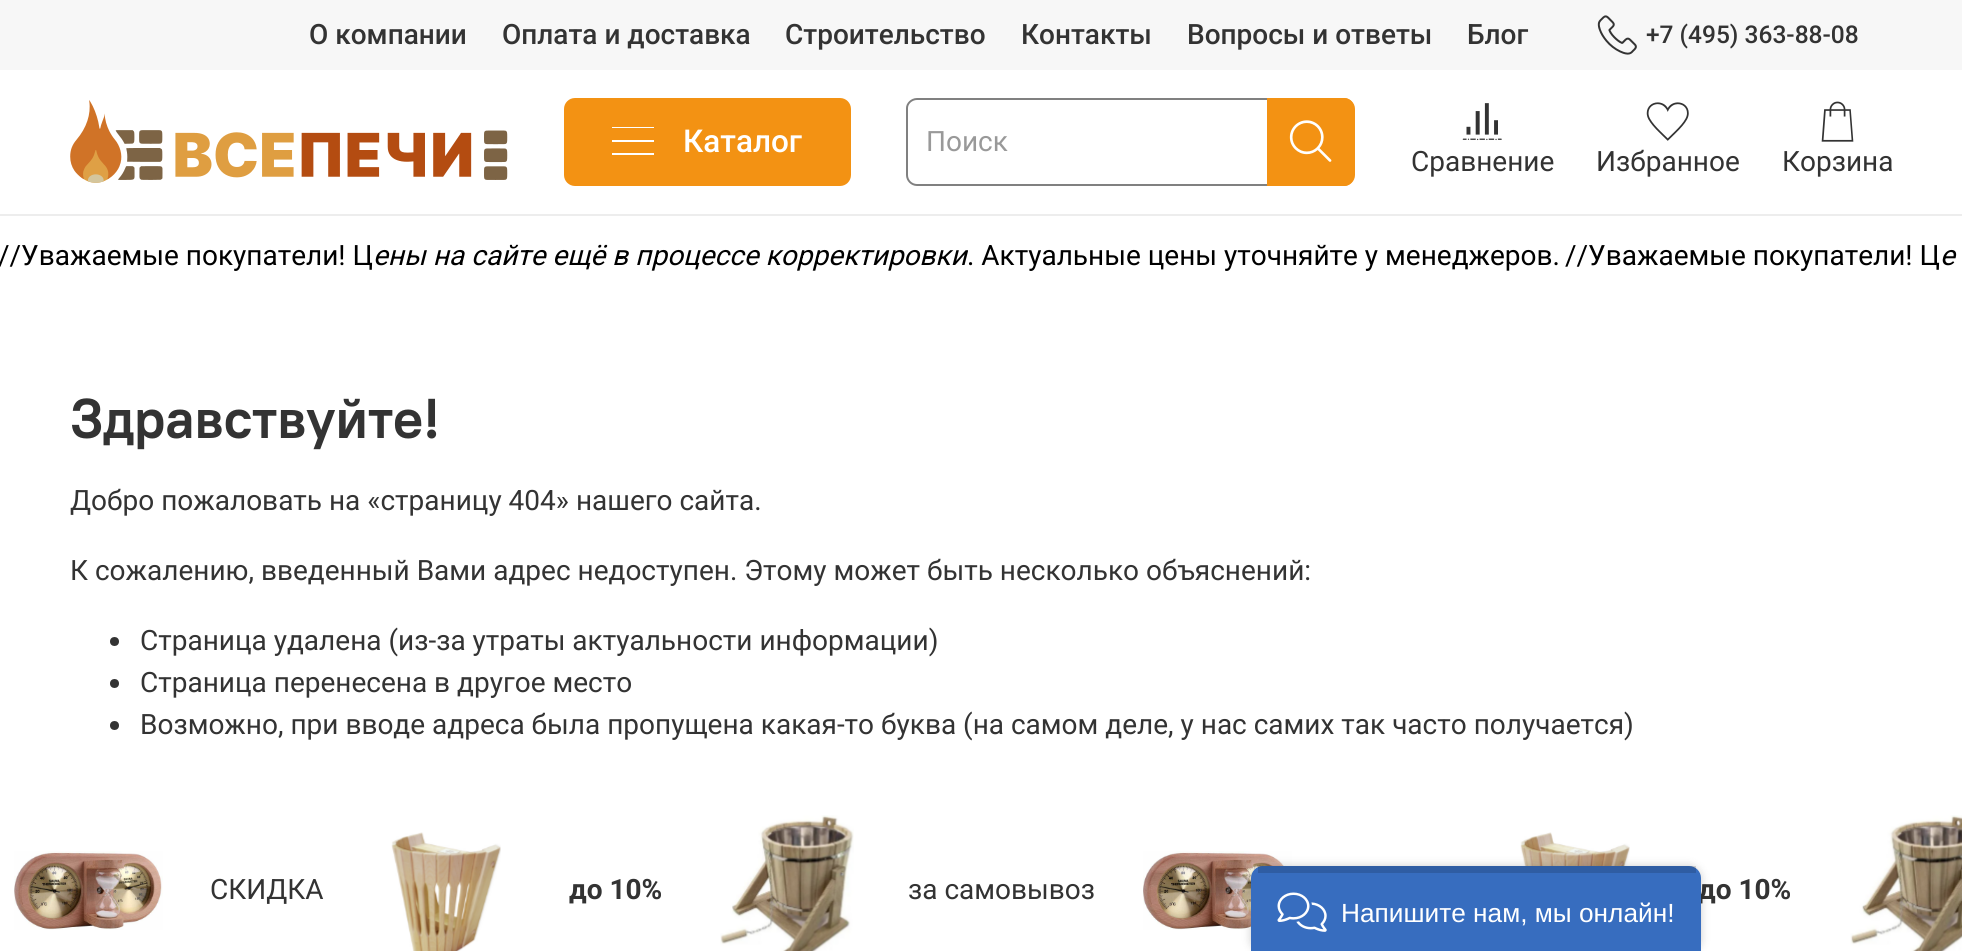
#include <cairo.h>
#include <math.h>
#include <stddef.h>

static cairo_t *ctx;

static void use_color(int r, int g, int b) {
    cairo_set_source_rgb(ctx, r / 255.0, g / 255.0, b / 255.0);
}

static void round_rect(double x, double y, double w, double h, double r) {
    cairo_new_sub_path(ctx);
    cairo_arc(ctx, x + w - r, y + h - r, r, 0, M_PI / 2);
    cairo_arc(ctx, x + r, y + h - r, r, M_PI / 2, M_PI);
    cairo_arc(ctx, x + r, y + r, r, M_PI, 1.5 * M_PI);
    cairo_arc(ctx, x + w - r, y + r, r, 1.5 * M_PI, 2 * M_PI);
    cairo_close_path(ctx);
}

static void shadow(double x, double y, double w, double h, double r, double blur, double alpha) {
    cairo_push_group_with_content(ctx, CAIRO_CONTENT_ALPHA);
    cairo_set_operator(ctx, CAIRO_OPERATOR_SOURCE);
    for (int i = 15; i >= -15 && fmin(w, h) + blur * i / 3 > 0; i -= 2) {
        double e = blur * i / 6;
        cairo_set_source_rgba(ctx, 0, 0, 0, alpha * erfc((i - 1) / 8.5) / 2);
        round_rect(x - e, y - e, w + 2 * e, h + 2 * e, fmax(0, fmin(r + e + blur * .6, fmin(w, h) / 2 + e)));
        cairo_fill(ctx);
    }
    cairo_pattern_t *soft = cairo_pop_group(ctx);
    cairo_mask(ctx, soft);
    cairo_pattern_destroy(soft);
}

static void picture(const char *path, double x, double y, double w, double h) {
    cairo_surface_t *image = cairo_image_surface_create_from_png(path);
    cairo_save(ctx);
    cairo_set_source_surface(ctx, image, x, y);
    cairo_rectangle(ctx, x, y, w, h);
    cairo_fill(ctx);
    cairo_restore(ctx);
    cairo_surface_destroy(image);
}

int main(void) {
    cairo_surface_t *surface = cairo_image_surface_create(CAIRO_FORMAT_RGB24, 1962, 951);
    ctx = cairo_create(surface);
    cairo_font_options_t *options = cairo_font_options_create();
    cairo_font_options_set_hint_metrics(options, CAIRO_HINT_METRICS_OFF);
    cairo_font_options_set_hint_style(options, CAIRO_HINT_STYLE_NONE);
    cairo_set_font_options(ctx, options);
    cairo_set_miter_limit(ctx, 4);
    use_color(255, 255, 255);
    cairo_paint(ctx);
    use_color(247, 247, 247);
    cairo_rectangle(ctx, 0, 0, 1962, 70);
    cairo_fill(ctx);
    cairo_select_font_face(ctx, "Roboto Medium", CAIRO_FONT_SLANT_NORMAL, CAIRO_FONT_WEIGHT_NORMAL);
    cairo_set_font_size(ctx, 28);
    use_color(51, 51, 51);
    cairo_move_to(ctx, 309, 44);
    cairo_show_text(ctx, "О компании");
    cairo_move_to(ctx, 502, 44);
    cairo_show_text(ctx, "Оплата и доставка");
    cairo_move_to(ctx, 785, 44);
    cairo_show_text(ctx, "Строительство");
    cairo_move_to(ctx, 1021, 44);
    cairo_show_text(ctx, "Контакты");
    cairo_move_to(ctx, 1187, 44);
    cairo_show_text(ctx, "Вопросы и ответы");
    cairo_move_to(ctx, 1467, 44);
    cairo_show_text(ctx, "Блог");
    picture("img1.png", 1597, 15, 40, 40);
    cairo_set_font_size(ctx, 24.5);
    cairo_move_to(ctx, 1646, 43);
    cairo_show_text(ctx, "+7 (495) 363-88-08");
    use_color(237, 237, 237);
    cairo_rectangle(ctx, 0, 214, 1962, 2);
    cairo_fill(ctx);
    picture("img2.png", 70, 100, 438, 83);
    use_color(243, 146, 19);
    round_rect(564, 98, 287, 88, 11);
    cairo_fill(ctx);
    use_color(255, 255, 255);
    cairo_new_path(ctx);
    cairo_move_to(ctx, 612, 127);
    cairo_line_to(ctx, 654, 127);
    cairo_line_to(ctx, 654, 128);
    cairo_line_to(ctx, 612, 128);
    cairo_close_path(ctx);
    cairo_move_to(ctx, 612, 153);
    cairo_line_to(ctx, 654, 153);
    cairo_line_to(ctx, 654, 155);
    cairo_line_to(ctx, 612, 155);
    cairo_close_path(ctx);
    cairo_move_to(ctx, 612, 140);
    cairo_line_to(ctx, 654, 140);
    cairo_line_to(ctx, 654, 142);
    cairo_line_to(ctx, 612, 142);
    cairo_close_path(ctx);
    cairo_fill(ctx);
    cairo_set_font_size(ctx, 31.5);
    cairo_move_to(ctx, 683, 152);
    cairo_show_text(ctx, "Каталог");
    use_color(128, 128, 128);
    cairo_set_fill_rule(ctx, CAIRO_FILL_RULE_EVEN_ODD);
    cairo_new_path(ctx);
    cairo_move_to(ctx, 917, 98);
    cairo_line_to(ctx, 1267, 98);
    cairo_line_to(ctx, 1267, 186);
    cairo_line_to(ctx, 917, 186);
    cairo_curve_to(ctx, 911, 186, 906, 181, 906, 175);
    cairo_line_to(ctx, 906, 108);
    cairo_curve_to(ctx, 906, 103, 911, 98, 917, 98);
    cairo_close_path(ctx);
    cairo_move_to(ctx, 917, 100);
    cairo_line_to(ctx, 1267, 100);
    cairo_line_to(ctx, 1267, 184);
    cairo_line_to(ctx, 917, 184);
    cairo_curve_to(ctx, 912, 184, 908, 180, 908, 175);
    cairo_line_to(ctx, 908, 108);
    cairo_curve_to(ctx, 908, 104, 912, 100, 917, 100);
    cairo_close_path(ctx);
    cairo_fill(ctx);
    cairo_select_font_face(ctx, "Roboto", CAIRO_FONT_SLANT_NORMAL, CAIRO_FONT_WEIGHT_NORMAL);
    cairo_set_font_size(ctx, 28);
    use_color(153, 153, 153);
    cairo_move_to(ctx, 926, 151);
    cairo_show_text(ctx, "Поиск");
    use_color(243, 146, 19);
    cairo_new_path(ctx);
    cairo_move_to(ctx, 1267, 98);
    cairo_line_to(ctx, 1344, 98);
    cairo_curve_to(ctx, 1350, 98, 1355, 103, 1355, 109);
    cairo_line_to(ctx, 1355, 175);
    cairo_curve_to(ctx, 1355, 181, 1350, 186, 1344, 186);
    cairo_line_to(ctx, 1267, 186);
    cairo_close_path(ctx);
    cairo_fill(ctx);
    cairo_new_path(ctx);
    cairo_move_to(ctx, 1267, 98);
    cairo_line_to(ctx, 1344, 98);
    cairo_curve_to(ctx, 1350, 98, 1354, 103, 1354, 108);
    cairo_line_to(ctx, 1354, 175);
    cairo_curve_to(ctx, 1354, 181, 1350, 186, 1344, 186);
    cairo_line_to(ctx, 1267, 186);
    cairo_close_path(ctx);
    cairo_move_to(ctx, 1267, 100);
    cairo_line_to(ctx, 1344, 100);
    cairo_curve_to(ctx, 1349, 100, 1353, 104, 1353, 108);
    cairo_line_to(ctx, 1353, 175);
    cairo_curve_to(ctx, 1353, 180, 1349, 184, 1344, 184);
    cairo_line_to(ctx, 1267, 184);
    cairo_close_path(ctx);
    cairo_fill(ctx);
    picture("img3.png", 1289, 120, 43, 42);
    picture("img4.png", 1462, 103, 40, 38);
    use_color(51, 51, 51);
    cairo_move_to(ctx, 1411, 171);
    cairo_show_text(ctx, "Сравнение");
    picture("img5.png", 1646, 102, 43, 39);
    cairo_move_to(ctx, 1596, 171);
    cairo_show_text(ctx, "Избранное");
    picture("img6.png", 1821, 101, 33, 41);
    cairo_move_to(ctx, 1782, 171);
    cairo_show_text(ctx, "Корзина");
    use_color(0, 0, 0);
    cairo_move_to(ctx, -2, 265);
    cairo_show_text(ctx, "//Уважаемые покупатели! Ц");
    cairo_select_font_face(ctx, "Roboto", CAIRO_FONT_SLANT_ITALIC, CAIRO_FONT_WEIGHT_NORMAL);
    cairo_move_to(ctx, 373, 265);
    cairo_show_text(ctx, "ены на сайте ещё в процессе корректировки");
    cairo_select_font_face(ctx, "Roboto", CAIRO_FONT_SLANT_NORMAL, CAIRO_FONT_WEIGHT_NORMAL);
    cairo_move_to(ctx, 967, 265);
    cairo_show_text(ctx, ". Актуальные цены уточняйте у менеджеров.");
    cairo_move_to(ctx, 1565, 265);
    cairo_show_text(ctx, "//Уважаемые покупатели! Ц");
    cairo_select_font_face(ctx, "Roboto", CAIRO_FONT_SLANT_ITALIC, CAIRO_FONT_WEIGHT_NORMAL);
    cairo_move_to(ctx, 1940, 265);
    cairo_show_text(ctx, "е");
    cairo_select_font_face(ctx, "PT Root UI", CAIRO_FONT_SLANT_NORMAL, CAIRO_FONT_WEIGHT_BOLD);
    cairo_set_font_size(ctx, 56);
    use_color(51, 51, 51);
    cairo_move_to(ctx, 70, 438);
    cairo_show_text(ctx, "Здравствуйте!");
    cairo_select_font_face(ctx, "Roboto", CAIRO_FONT_SLANT_NORMAL, CAIRO_FONT_WEIGHT_NORMAL);
    cairo_set_font_size(ctx, 28);
    cairo_move_to(ctx, 70, 510);
    cairo_show_text(ctx, "Добро пожаловать на «страницу 404» нашего сайта.");
    cairo_move_to(ctx, 70, 580);
    cairo_show_text(ctx, "К сожалению, введенный Вами адрес недоступен. Этому может быть несколько объяснений:");
    cairo_new_path(ctx);
    cairo_arc(ctx, 114.5, 641.5, 4.5, 0, 2 * M_PI);
    cairo_fill(ctx);
    cairo_move_to(ctx, 140, 650);
    cairo_show_text(ctx, "Страница удалена (из-за утраты актуальности информации)");
    cairo_new_path(ctx);
    cairo_arc(ctx, 114.5, 683.5, 4.5, 0, 2 * M_PI);
    cairo_fill(ctx);
    cairo_move_to(ctx, 140, 692);
    cairo_show_text(ctx, "Страница перенесена в другое место");
    cairo_new_path(ctx);
    cairo_arc(ctx, 114.5, 725.5, 4.5, 0, 2 * M_PI);
    cairo_fill(ctx);
    cairo_move_to(ctx, 140, 734);
    cairo_show_text(ctx, "Возможно, при вводе адреса была пропущена какая-то буква (на самом деле, у нас самих так часто получается)");
    picture("img7.png", 14, 851, 149, 79);
    cairo_move_to(ctx, 210, 899);
    cairo_show_text(ctx, "СКИДКА");
    picture("img8.png", 391, 832, 110, 119);
    cairo_select_font_face(ctx, "Roboto", CAIRO_FONT_SLANT_NORMAL, CAIRO_FONT_WEIGHT_BOLD);
    cairo_move_to(ctx, 569, 899);
    cairo_show_text(ctx, "до 10%");
    picture("img9.png", 720, 815, 134, 136);
    cairo_select_font_face(ctx, "Roboto", CAIRO_FONT_SLANT_NORMAL, CAIRO_FONT_WEIGHT_NORMAL);
    cairo_move_to(ctx, 908, 899);
    cairo_show_text(ctx, "за самовывоз");
    picture("img10.png", 1143, 851, 149, 79);
    picture("img11.png", 1520, 832, 110, 34);
    cairo_select_font_face(ctx, "Roboto", CAIRO_FONT_SLANT_NORMAL, CAIRO_FONT_WEIGHT_BOLD);
    cairo_move_to(ctx, 1698, 899);
    cairo_show_text(ctx, "до 10%");
    picture("img12.png", 1850, 815, 112, 136);
    use_color(0, 0, 0);
    shadow(1251, 866, 450, 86, 12, 4.5, 0.2);
    use_color(55, 109, 191);
    cairo_new_path(ctx);
    cairo_move_to(ctx, 1263, 866);
    cairo_line_to(ctx, 1689, 866);
    cairo_curve_to(ctx, 1695.5, 866, 1701, 871.5, 1701, 878);
    cairo_line_to(ctx, 1701, 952);
    cairo_line_to(ctx, 1251, 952);
    cairo_line_to(ctx, 1251, 878);
    cairo_curve_to(ctx, 1251, 871.5, 1256.5, 866, 1263, 866);
    cairo_close_path(ctx);
    cairo_fill(ctx);
    cairo_set_source_rgba(ctx, 0, 0, 0, 0.15);
    cairo_rectangle(ctx, 1258, 866, 438, 7);
    cairo_fill(ctx);
    picture("img13.png", 1277, 892, 50, 40);
    cairo_select_font_face(ctx, "Liberation Sans", CAIRO_FONT_SLANT_NORMAL, CAIRO_FONT_WEIGHT_NORMAL);
    cairo_set_font_size(ctx, 26.25);
    use_color(255, 255, 255);
    cairo_move_to(ctx, 1341, 922);
    cairo_show_text(ctx, "Напишите нам, мы онлайн!");
    cairo_surface_write_to_png(surface, "result.png");
    cairo_font_options_destroy(options);
    cairo_destroy(ctx);
    cairo_surface_destroy(surface);
    return 0;
}
